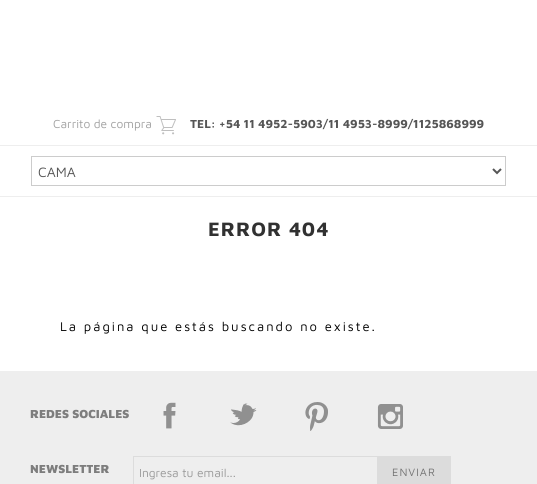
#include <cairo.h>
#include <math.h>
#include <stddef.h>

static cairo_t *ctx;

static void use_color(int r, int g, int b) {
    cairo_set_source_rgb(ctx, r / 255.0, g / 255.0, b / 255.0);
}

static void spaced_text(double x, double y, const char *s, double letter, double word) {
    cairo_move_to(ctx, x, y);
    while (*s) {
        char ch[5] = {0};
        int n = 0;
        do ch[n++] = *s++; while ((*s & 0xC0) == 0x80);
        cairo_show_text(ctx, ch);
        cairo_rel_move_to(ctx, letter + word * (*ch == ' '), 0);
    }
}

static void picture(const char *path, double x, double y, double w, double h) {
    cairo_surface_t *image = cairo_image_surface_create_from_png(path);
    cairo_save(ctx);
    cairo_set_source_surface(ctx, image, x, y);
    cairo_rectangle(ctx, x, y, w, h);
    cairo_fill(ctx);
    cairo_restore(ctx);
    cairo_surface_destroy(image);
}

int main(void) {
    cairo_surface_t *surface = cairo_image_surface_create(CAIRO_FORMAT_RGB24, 537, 484);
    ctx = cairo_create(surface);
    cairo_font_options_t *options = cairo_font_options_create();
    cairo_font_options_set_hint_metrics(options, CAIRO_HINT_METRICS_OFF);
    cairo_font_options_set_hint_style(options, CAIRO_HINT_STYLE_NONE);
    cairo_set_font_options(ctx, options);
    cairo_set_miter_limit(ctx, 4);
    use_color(255, 255, 255);
    cairo_paint(ctx);
    cairo_select_font_face(ctx, "Maven Pro", CAIRO_FONT_SLANT_NORMAL, CAIRO_FONT_WEIGHT_NORMAL);
    cairo_set_font_size(ctx, 12);
    use_color(160, 160, 160);
    cairo_move_to(ctx, 53, 128);
    cairo_show_text(ctx, "Carrito de compra");
    picture("img1.png", 156, 116, 20, 19);
    cairo_select_font_face(ctx, "Maven Pro", CAIRO_FONT_SLANT_NORMAL, CAIRO_FONT_WEIGHT_BOLD);
    use_color(85, 85, 85);
    cairo_move_to(ctx, 190, 128);
    cairo_show_text(ctx, "TEL: +54 11 4952-5903/11 4953-8999/1125868999");
    use_color(238, 238, 238);
    cairo_rectangle(ctx, 0, 145, 537, 1);
    cairo_fill(ctx);
    cairo_rectangle(ctx, 0, 196, 537, 1);
    cairo_fill(ctx);
    cairo_rectangle(ctx, 31.5, 156.5, 474, 29);
    use_color(204, 204, 204);
    cairo_set_line_width(ctx, 1);
    cairo_stroke(ctx);
    cairo_new_path(ctx);
    cairo_move_to(ctx, 493, 169);
    cairo_line_to(ctx, 497, 173);
    cairo_line_to(ctx, 501, 169);
    use_color(85, 85, 85);
    cairo_set_line_width(ctx, 2);
    cairo_stroke(ctx);
    cairo_select_font_face(ctx, "Maven Pro", CAIRO_FONT_SLANT_NORMAL, CAIRO_FONT_WEIGHT_NORMAL);
    cairo_set_font_size(ctx, 14);
    cairo_move_to(ctx, 38, 177);
    cairo_show_text(ctx, "CAMA");
    cairo_select_font_face(ctx, "Maven Pro", CAIRO_FONT_SLANT_NORMAL, CAIRO_FONT_WEIGHT_BOLD);
    cairo_set_font_size(ctx, 20);
    use_color(49, 49, 49);
    spaced_text(208, 236, "ERROR 404", 1, 0);
    cairo_select_font_face(ctx, "Maven Pro", CAIRO_FONT_SLANT_NORMAL, CAIRO_FONT_WEIGHT_NORMAL);
    cairo_set_font_size(ctx, 13);
    use_color(0, 0, 0);
    spaced_text(60, 331, "La página que estás buscando no existe.", 2, 0);
    use_color(238, 238, 238);
    cairo_rectangle(ctx, 0, 371, 537, 113);
    cairo_fill(ctx);
    cairo_select_font_face(ctx, "Maven Pro Black", CAIRO_FONT_SLANT_NORMAL, CAIRO_FONT_WEIGHT_NORMAL);
    cairo_set_font_size(ctx, 12);
    use_color(125, 125, 125);
    cairo_move_to(ctx, 30, 418);
    cairo_show_text(ctx, "REDES SOCIALES");
    picture("img2.png", 163, 402, 13, 27);
    picture("img3.png", 230, 403, 27, 23);
    picture("img4.png", 305, 402, 23, 29);
    picture("img5.png", 377, 404, 26, 25);
    cairo_move_to(ctx, 30, 473);
    cairo_show_text(ctx, "NEWSLETTER");
    cairo_rectangle(ctx, 133.5, 456.5, 244, 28);
    use_color(220, 220, 220);
    cairo_set_line_width(ctx, 1);
    cairo_stroke(ctx);
    cairo_select_font_face(ctx, "Maven Pro", CAIRO_FONT_SLANT_NORMAL, CAIRO_FONT_WEIGHT_NORMAL);
    use_color(153, 153, 153);
    cairo_move_to(ctx, 139, 477);
    cairo_show_text(ctx, "Ingresa tu email...");
    use_color(220, 220, 220);
    cairo_rectangle(ctx, 378, 456, 73, 28);
    cairo_fill(ctx);
    cairo_set_font_size(ctx, 11);
    use_color(112, 112, 112);
    spaced_text(392, 476, "ENVIAR", 1, 0);
    cairo_surface_write_to_png(surface, "result.png");
    cairo_font_options_destroy(options);
    cairo_destroy(ctx);
    cairo_surface_destroy(surface);
    return 0;
}
